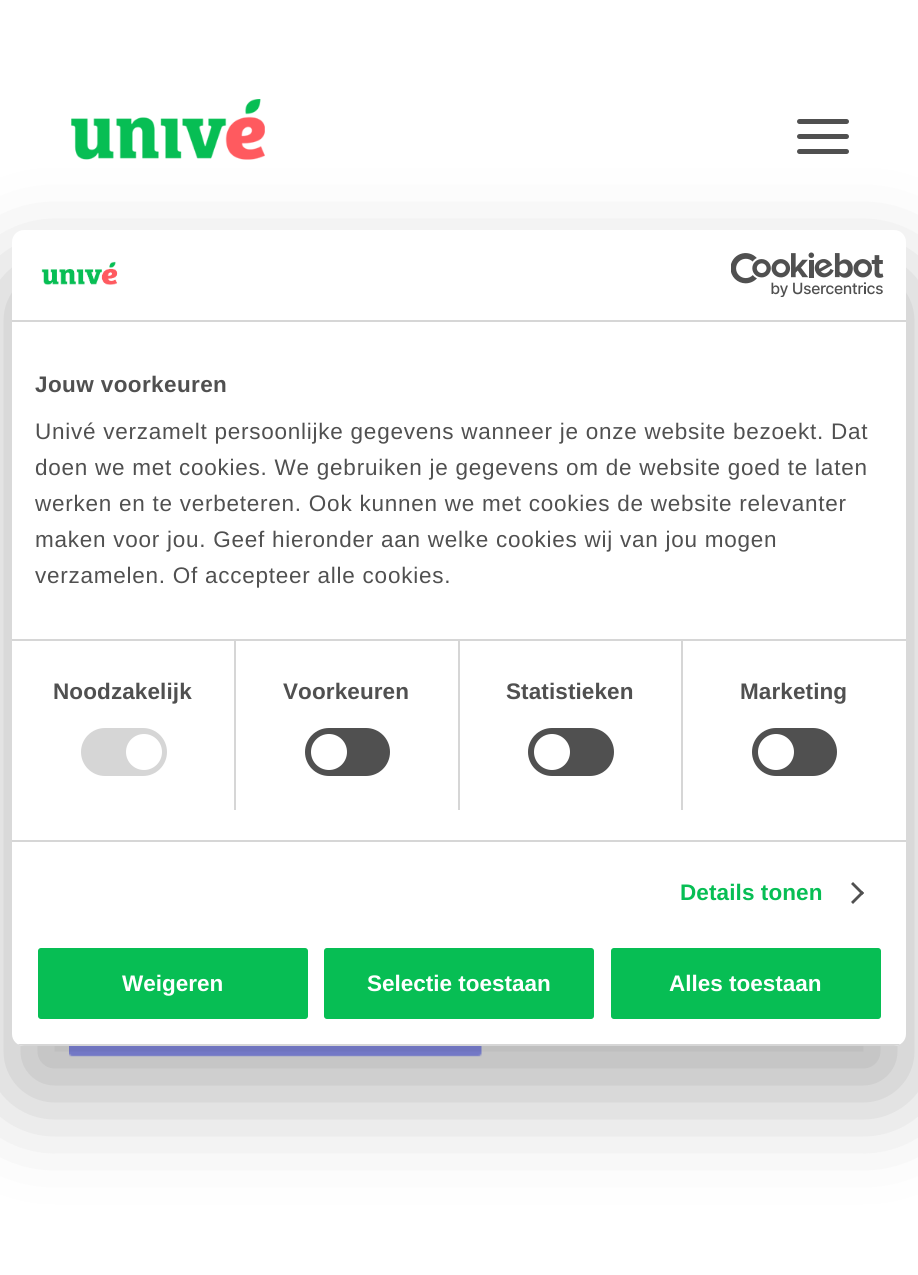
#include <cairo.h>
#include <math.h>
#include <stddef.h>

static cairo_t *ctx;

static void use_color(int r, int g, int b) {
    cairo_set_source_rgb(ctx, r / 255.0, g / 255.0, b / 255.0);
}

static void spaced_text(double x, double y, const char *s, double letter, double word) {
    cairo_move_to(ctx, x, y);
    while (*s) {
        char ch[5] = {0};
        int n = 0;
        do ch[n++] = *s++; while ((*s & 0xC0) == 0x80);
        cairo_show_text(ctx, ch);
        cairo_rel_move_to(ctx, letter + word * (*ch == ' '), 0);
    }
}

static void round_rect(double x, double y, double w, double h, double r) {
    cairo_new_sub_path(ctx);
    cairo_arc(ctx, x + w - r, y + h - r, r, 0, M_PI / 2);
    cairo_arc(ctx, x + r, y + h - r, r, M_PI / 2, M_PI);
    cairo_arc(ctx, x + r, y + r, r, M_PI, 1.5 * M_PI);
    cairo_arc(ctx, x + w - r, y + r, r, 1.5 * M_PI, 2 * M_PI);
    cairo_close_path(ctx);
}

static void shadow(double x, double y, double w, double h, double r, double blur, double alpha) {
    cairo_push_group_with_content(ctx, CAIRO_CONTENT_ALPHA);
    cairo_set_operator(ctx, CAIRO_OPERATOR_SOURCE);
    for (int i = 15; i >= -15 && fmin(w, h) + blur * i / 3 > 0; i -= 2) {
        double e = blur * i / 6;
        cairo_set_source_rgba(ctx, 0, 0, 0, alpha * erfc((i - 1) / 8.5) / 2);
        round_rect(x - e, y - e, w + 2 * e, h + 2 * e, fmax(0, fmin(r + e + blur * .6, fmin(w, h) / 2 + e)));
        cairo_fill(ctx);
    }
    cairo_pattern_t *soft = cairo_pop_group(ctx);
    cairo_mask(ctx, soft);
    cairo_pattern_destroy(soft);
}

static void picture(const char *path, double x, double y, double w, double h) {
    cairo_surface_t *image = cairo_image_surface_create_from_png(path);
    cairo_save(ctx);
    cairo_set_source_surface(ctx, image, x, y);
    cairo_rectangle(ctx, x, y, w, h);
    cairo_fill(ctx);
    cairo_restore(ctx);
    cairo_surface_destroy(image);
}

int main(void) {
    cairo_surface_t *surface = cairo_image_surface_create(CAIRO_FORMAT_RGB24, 918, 1275);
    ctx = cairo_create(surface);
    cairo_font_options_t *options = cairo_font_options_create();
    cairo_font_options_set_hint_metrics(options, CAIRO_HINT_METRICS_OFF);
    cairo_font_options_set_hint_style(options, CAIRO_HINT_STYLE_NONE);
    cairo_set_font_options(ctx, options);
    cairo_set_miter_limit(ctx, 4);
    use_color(255, 255, 255);
    cairo_paint(ctx);
    picture("img1.png", 71, 99, 194, 61);
    use_color(80, 80, 80);
    round_rect(797, 134, 52, 5, 2.5);
    cairo_fill(ctx);
    round_rect(797, 119, 52, 5, 2.5);
    cairo_fill(ctx);
    round_rect(797, 149, 52, 5, 2.5);
    cairo_fill(ctx);
    picture("img2.png", 69, 1046, 413, 11);
    use_color(0, 0, 0);
    shadow(12, 278, 894, 816, 12, 51, 0.3);
    use_color(255, 255, 255);
    round_rect(12, 230, 894, 816, 12);
    cairo_fill(ctx);
    use_color(214, 214, 214);
    cairo_rectangle(ctx, 12, 320, 894, 2);
    cairo_fill(ctx);
    picture("img3.png", 41, 261, 77, 24);
    picture("img4.png", 731, 252, 153, 45);
    cairo_rectangle(ctx, 12, 639, 894, 2);
    cairo_fill(ctx);
    cairo_select_font_face(ctx, "Liberation Sans", CAIRO_FONT_SLANT_NORMAL, CAIRO_FONT_WEIGHT_BOLD);
    cairo_set_font_size(ctx, 22.5);
    use_color(80, 80, 80);
    spaced_text(35, 392, "Jouw voorkeuren", 0.4, 0);
    cairo_select_font_face(ctx, "Liberation Sans", CAIRO_FONT_SLANT_NORMAL, CAIRO_FONT_WEIGHT_NORMAL);
    spaced_text(35, 439, "Univé verzamelt persoonlijke gegevens wanneer je onze website bezoekt. Dat", 0.75, 0);
    spaced_text(35, 475, "doen we met cookies. We gebruiken je gegevens om de website goed te laten", 0.75, 0);
    spaced_text(35, 511, "werken en te verbeteren. Ook kunnen we met cookies de website relevanter", 0.75, 0);
    spaced_text(35, 547, "maken voor jou. Geef hieronder aan welke cookies wij van jou mogen", 0.75, 0);
    spaced_text(35, 583, "verzamelen. Of accepteer alle cookies.", 0.75, 0);
    use_color(214, 214, 214);
    cairo_rectangle(ctx, 12, 840, 894, 2);
    cairo_fill(ctx);
    cairo_rectangle(ctx, 234, 641, 2, 169);
    cairo_fill(ctx);
    cairo_select_font_face(ctx, "Liberation Sans", CAIRO_FONT_SLANT_NORMAL, CAIRO_FONT_WEIGHT_BOLD);
    use_color(80, 80, 80);
    spaced_text(53, 699, "Noodzakelijk", 0.1, 0);
    use_color(214, 214, 214);
    round_rect(81, 728, 86, 48, 24);
    cairo_fill(ctx);
    use_color(255, 255, 255);
    cairo_arc(ctx, 144, 752, 18, 0, 2 * M_PI);
    cairo_fill(ctx);
    use_color(214, 214, 214);
    cairo_rectangle(ctx, 458, 641, 2, 169);
    cairo_fill(ctx);
    use_color(80, 80, 80);
    spaced_text(283, 699, "Voorkeuren", 0.1, 0);
    round_rect(305, 728, 85, 48, 24);
    cairo_fill(ctx);
    use_color(255, 255, 255);
    cairo_arc(ctx, 329, 752, 18, 0, 2 * M_PI);
    cairo_fill(ctx);
    use_color(214, 214, 214);
    cairo_rectangle(ctx, 681, 641, 2, 169);
    cairo_fill(ctx);
    use_color(80, 80, 80);
    spaced_text(506, 699, "Statistieken", 0.1, 0);
    round_rect(528, 728, 86, 48, 24);
    cairo_fill(ctx);
    use_color(255, 255, 255);
    cairo_arc(ctx, 552, 752, 18, 0, 2 * M_PI);
    cairo_fill(ctx);
    use_color(80, 80, 80);
    spaced_text(740, 699, "Marketing", 0.1, 0);
    round_rect(752, 728, 85, 48, 24);
    cairo_fill(ctx);
    use_color(255, 255, 255);
    cairo_arc(ctx, 776, 752, 18, 0, 2 * M_PI);
    cairo_fill(ctx);
    use_color(7, 190, 84);
    spaced_text(680, 900, "Details tonen", 0.1, 0);
    use_color(80, 80, 80);
    cairo_new_path(ctx);
    cairo_move_to(ctx, 853, 882);
    cairo_line_to(ctx, 864, 893);
    cairo_line_to(ctx, 862, 895);
    cairo_line_to(ctx, 851, 884);
    cairo_close_path(ctx);
    cairo_fill(ctx);
    cairo_new_path(ctx);
    cairo_move_to(ctx, 862, 891);
    cairo_line_to(ctx, 864, 893);
    cairo_line_to(ctx, 853, 904);
    cairo_line_to(ctx, 851, 902);
    cairo_close_path(ctx);
    cairo_fill(ctx);
    cairo_save(ctx);
    round_rect(12, 230, 894, 816, 12);
    cairo_clip(ctx);
    use_color(214, 214, 214);
    cairo_rectangle(ctx, 12, 1044, 894, 2);
    cairo_fill(ctx);
    cairo_restore(ctx);
    use_color(7, 190, 84);
    round_rect(36.5, 946.5, 273, 74, 4.5);
    cairo_fill_preserve(ctx);
    use_color(255, 255, 255);
    cairo_set_line_width(ctx, 3);
    cairo_stroke(ctx);
    cairo_move_to(ctx, 122, 991);
    cairo_show_text(ctx, "Weigeren");
    use_color(7, 190, 84);
    round_rect(322.5, 946.5, 273, 74, 4.5);
    cairo_fill_preserve(ctx);
    use_color(255, 255, 255);
    cairo_stroke(ctx);
    cairo_move_to(ctx, 367, 991);
    cairo_show_text(ctx, "Selectie toestaan");
    use_color(7, 190, 84);
    round_rect(609.5, 946.5, 273, 74, 4.5);
    cairo_fill_preserve(ctx);
    use_color(255, 255, 255);
    cairo_stroke(ctx);
    cairo_move_to(ctx, 669, 991);
    cairo_show_text(ctx, "Alles toestaan");
    cairo_surface_write_to_png(surface, "result.png");
    cairo_font_options_destroy(options);
    cairo_destroy(ctx);
    cairo_surface_destroy(surface);
    return 0;
}
